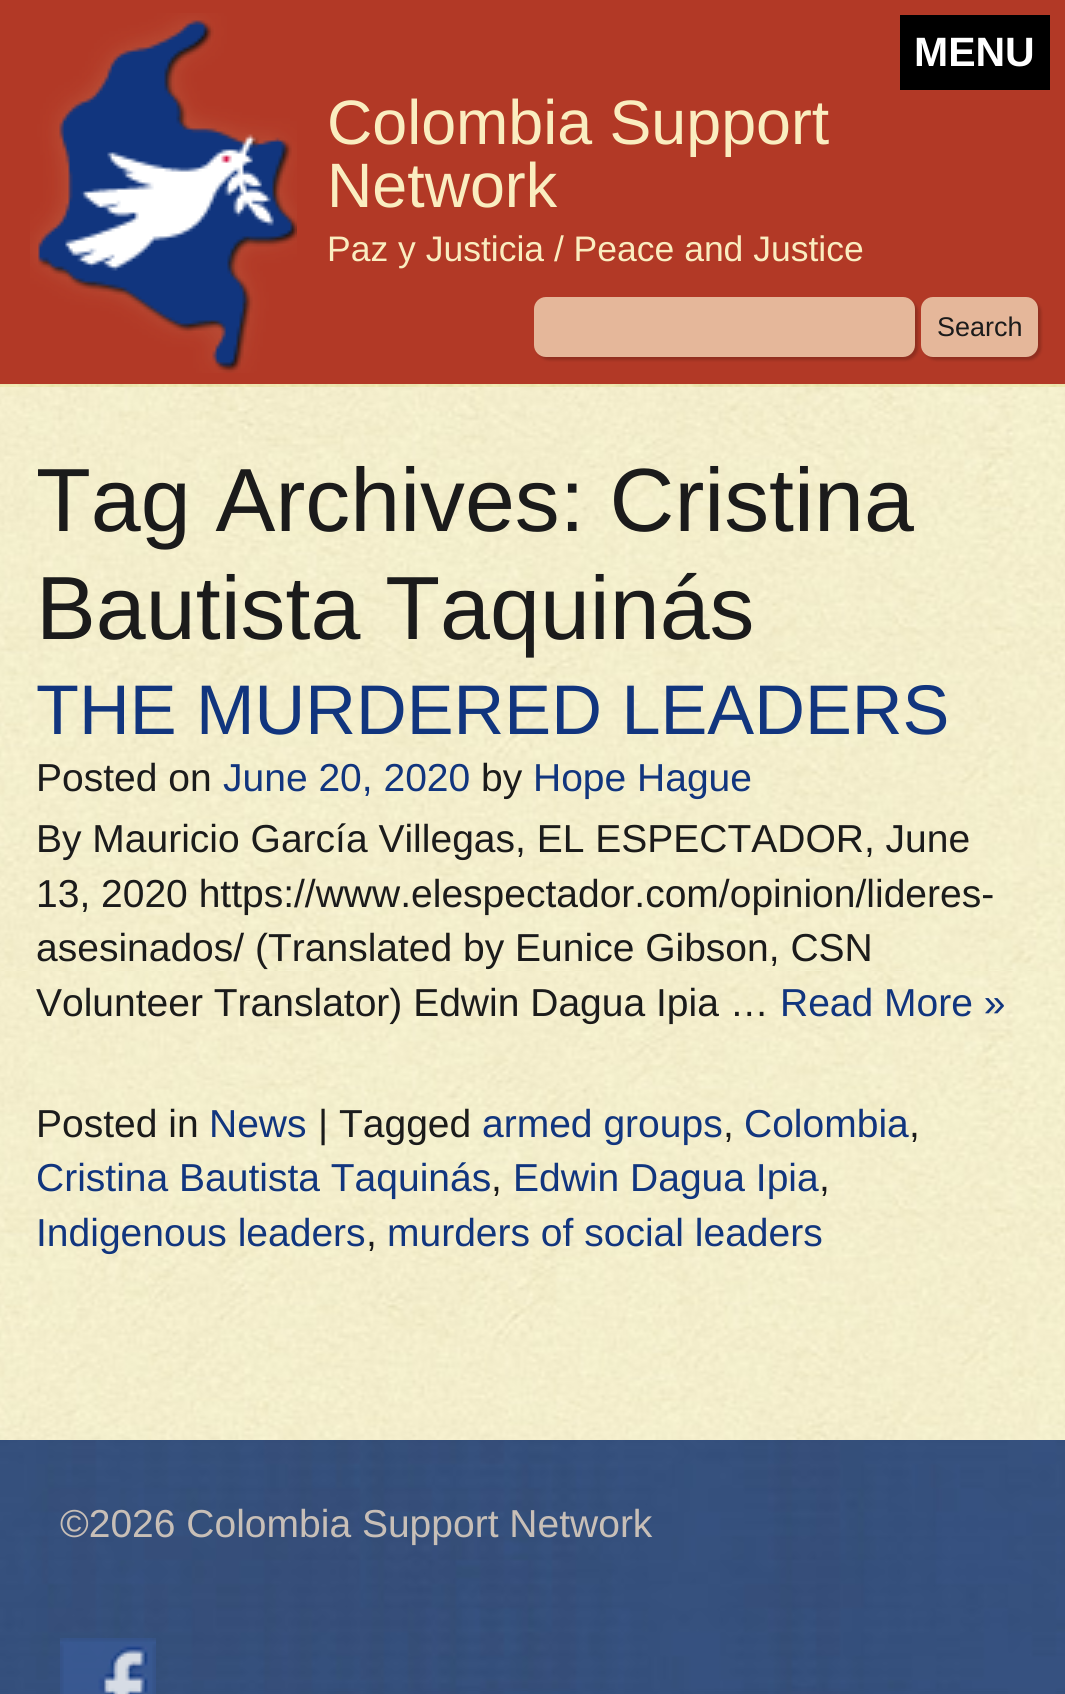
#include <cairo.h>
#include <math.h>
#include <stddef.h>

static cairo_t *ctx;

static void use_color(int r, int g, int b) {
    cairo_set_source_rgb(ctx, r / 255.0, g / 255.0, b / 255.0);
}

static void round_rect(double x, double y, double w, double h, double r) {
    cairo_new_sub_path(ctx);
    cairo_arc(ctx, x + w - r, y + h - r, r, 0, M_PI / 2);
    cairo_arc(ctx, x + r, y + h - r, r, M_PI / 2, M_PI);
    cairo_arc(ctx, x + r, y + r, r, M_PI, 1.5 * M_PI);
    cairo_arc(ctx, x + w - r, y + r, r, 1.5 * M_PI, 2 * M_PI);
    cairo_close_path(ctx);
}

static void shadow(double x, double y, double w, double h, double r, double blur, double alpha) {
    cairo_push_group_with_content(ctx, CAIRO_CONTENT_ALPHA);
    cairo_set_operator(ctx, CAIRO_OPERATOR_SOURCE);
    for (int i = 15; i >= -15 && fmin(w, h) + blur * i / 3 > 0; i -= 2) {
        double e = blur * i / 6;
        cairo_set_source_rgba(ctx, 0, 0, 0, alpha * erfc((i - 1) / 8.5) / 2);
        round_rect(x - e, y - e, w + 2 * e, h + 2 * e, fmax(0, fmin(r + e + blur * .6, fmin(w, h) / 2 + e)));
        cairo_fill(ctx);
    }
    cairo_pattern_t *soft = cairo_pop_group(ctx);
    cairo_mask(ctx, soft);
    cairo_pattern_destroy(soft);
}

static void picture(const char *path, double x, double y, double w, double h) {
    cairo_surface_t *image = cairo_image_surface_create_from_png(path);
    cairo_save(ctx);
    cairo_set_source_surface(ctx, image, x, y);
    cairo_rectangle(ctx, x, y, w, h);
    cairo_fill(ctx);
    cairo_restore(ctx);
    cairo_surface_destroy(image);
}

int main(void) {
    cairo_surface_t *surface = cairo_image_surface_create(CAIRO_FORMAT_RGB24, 1065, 1694);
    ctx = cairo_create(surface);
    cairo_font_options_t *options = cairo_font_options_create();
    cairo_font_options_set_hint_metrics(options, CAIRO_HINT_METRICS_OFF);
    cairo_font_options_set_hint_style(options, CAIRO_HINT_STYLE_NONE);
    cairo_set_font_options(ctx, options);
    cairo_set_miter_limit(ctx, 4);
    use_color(255, 255, 255);
    cairo_paint(ctx);
    picture("img1.png", 0, 384, 1065, 3);
    use_color(178, 57, 38);
    cairo_rectangle(ctx, 0, 0, 1065, 384);
    cairo_fill(ctx);
    use_color(0, 0, 0);
    cairo_rectangle(ctx, 900, 15, 150, 75);
    cairo_fill(ctx);
    cairo_select_font_face(ctx, "Liberation Sans", CAIRO_FONT_SLANT_NORMAL, CAIRO_FONT_WEIGHT_BOLD);
    cairo_set_font_size(ctx, 41);
    use_color(255, 255, 255);
    cairo_move_to(ctx, 914, 66);
    cairo_show_text(ctx, "MENU");
    picture("img2.png", 30, 13, 267, 360);
    cairo_select_font_face(ctx, "Liberation Sans", CAIRO_FONT_SLANT_NORMAL, CAIRO_FONT_WEIGHT_NORMAL);
    cairo_set_font_size(ctx, 62.75);
    use_color(250, 237, 192);
    cairo_move_to(ctx, 327, 144);
    cairo_show_text(ctx, "Colombia Support");
    cairo_move_to(ctx, 327, 207);
    cairo_show_text(ctx, "Network");
    cairo_set_font_size(ctx, 35.5);
    cairo_move_to(ctx, 327, 261);
    cairo_show_text(ctx, "Paz y Justicia / Peace and Justice");
    use_color(0, 0, 0);
    shadow(537, 300, 381, 60, 12, 1.5, 0.2);
    use_color(229, 183, 154);
    round_rect(534, 297, 381, 60, 12);
    cairo_fill(ctx);
    use_color(0, 0, 0);
    shadow(924, 300, 117, 60, 12, 1.5, 0.2);
    use_color(229, 183, 154);
    round_rect(921, 297, 117, 60, 12);
    cairo_fill(ctx);
    cairo_set_font_size(ctx, 27);
    use_color(27, 27, 27);
    cairo_move_to(ctx, 937, 336);
    cairo_show_text(ctx, "Search");
    picture("img3.png", 0, 387, 1065, 1053);
    cairo_set_font_size(ctx, 89.75);
    cairo_move_to(ctx, 36, 531);
    cairo_show_text(ctx, "Tag Archives: Cristina");
    cairo_move_to(ctx, 36, 639);
    cairo_show_text(ctx, "Bautista Taquinás");
    cairo_set_font_size(ctx, 70.25);
    use_color(17, 53, 126);
    cairo_move_to(ctx, 36, 734);
    cairo_show_text(ctx, "THE MURDERED LEADERS");
    cairo_set_font_size(ctx, 39);
    use_color(27, 27, 27);
    cairo_move_to(ctx, 36, 791);
    cairo_show_text(ctx, "Posted on");
    use_color(17, 53, 126);
    cairo_move_to(ctx, 223, 791);
    cairo_show_text(ctx, "June 20, 2020");
    use_color(27, 27, 27);
    cairo_move_to(ctx, 481, 791);
    cairo_show_text(ctx, "by");
    use_color(17, 53, 126);
    cairo_move_to(ctx, 533, 791);
    cairo_show_text(ctx, "Hope Hague");
    use_color(27, 27, 27);
    cairo_move_to(ctx, 36, 852);
    cairo_show_text(ctx, "By Mauricio García Villegas, EL ESPECTADOR, June");
    cairo_move_to(ctx, 36, 907);
    cairo_show_text(ctx, "13, 2020 https://www.elespectador.com/opinion/lideres-");
    cairo_move_to(ctx, 36, 961);
    cairo_show_text(ctx, "asesinados/ (Translated by Eunice Gibson, CSN");
    cairo_move_to(ctx, 36, 1016);
    cairo_show_text(ctx, "Volunteer Translator) Edwin Dagua Ipia …");
    use_color(17, 53, 126);
    cairo_move_to(ctx, 780, 1016);
    cairo_show_text(ctx, "Read More »");
    use_color(27, 27, 27);
    cairo_move_to(ctx, 36, 1137);
    cairo_show_text(ctx, "Posted in");
    use_color(17, 53, 126);
    cairo_move_to(ctx, 209, 1137);
    cairo_show_text(ctx, "News");
    use_color(27, 27, 27);
    cairo_move_to(ctx, 318, 1137);
    cairo_show_text(ctx, "| Tagged");
    use_color(17, 53, 126);
    cairo_move_to(ctx, 482, 1137);
    cairo_show_text(ctx, "armed groups");
    use_color(27, 27, 27);
    cairo_move_to(ctx, 723, 1137);
    cairo_show_text(ctx, ",");
    use_color(17, 53, 126);
    cairo_move_to(ctx, 744, 1137);
    cairo_show_text(ctx, "Colombia");
    use_color(27, 27, 27);
    cairo_move_to(ctx, 909, 1137);
    cairo_show_text(ctx, ",");
    use_color(17, 53, 126);
    cairo_move_to(ctx, 36, 1191);
    cairo_show_text(ctx, "Cristina Bautista Taquinás");
    use_color(27, 27, 27);
    cairo_move_to(ctx, 491, 1191);
    cairo_show_text(ctx, ",");
    use_color(17, 53, 126);
    cairo_move_to(ctx, 513, 1191);
    cairo_show_text(ctx, "Edwin Dagua Ipia");
    use_color(27, 27, 27);
    cairo_move_to(ctx, 819, 1191);
    cairo_show_text(ctx, ",");
    use_color(17, 53, 126);
    cairo_move_to(ctx, 36, 1246);
    cairo_show_text(ctx, "Indigenous leaders");
    use_color(27, 27, 27);
    cairo_move_to(ctx, 366, 1246);
    cairo_show_text(ctx, ",");
    use_color(17, 53, 126);
    cairo_move_to(ctx, 387, 1246);
    cairo_show_text(ctx, "murders of social leaders");
    picture("img4.png", 0, 1440, 1065, 254);
    use_color(200, 191, 183);
    cairo_move_to(ctx, 60, 1537);
    cairo_show_text(ctx, "©2026 Colombia Support Network");
    picture("img5.png", 60, 1638, 96, 56);
    cairo_surface_write_to_png(surface, "result.png");
    cairo_font_options_destroy(options);
    cairo_destroy(ctx);
    cairo_surface_destroy(surface);
    return 0;
}
